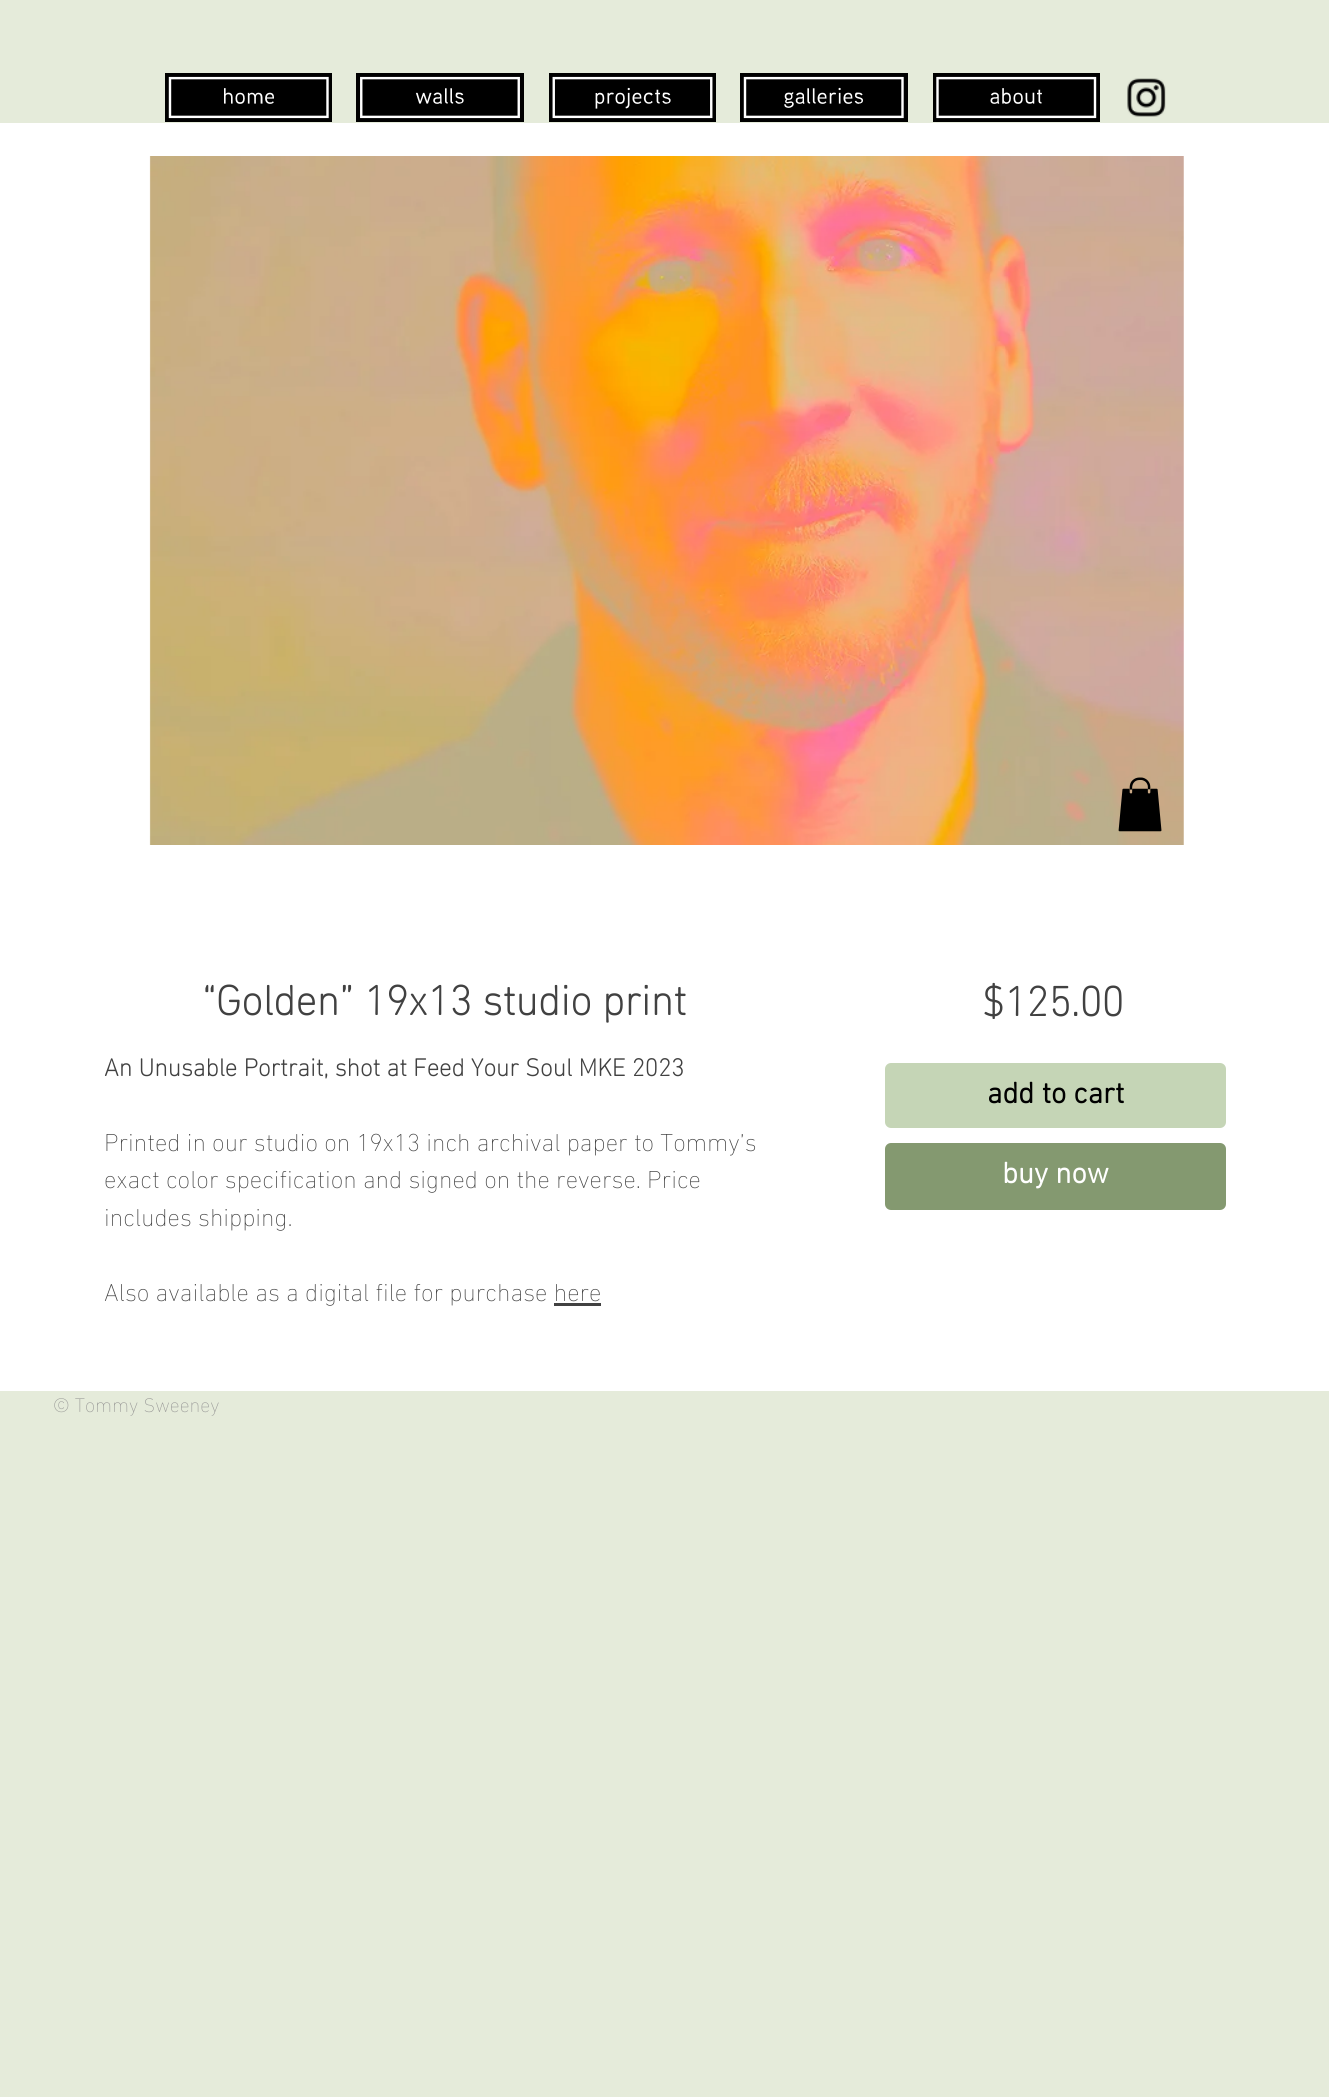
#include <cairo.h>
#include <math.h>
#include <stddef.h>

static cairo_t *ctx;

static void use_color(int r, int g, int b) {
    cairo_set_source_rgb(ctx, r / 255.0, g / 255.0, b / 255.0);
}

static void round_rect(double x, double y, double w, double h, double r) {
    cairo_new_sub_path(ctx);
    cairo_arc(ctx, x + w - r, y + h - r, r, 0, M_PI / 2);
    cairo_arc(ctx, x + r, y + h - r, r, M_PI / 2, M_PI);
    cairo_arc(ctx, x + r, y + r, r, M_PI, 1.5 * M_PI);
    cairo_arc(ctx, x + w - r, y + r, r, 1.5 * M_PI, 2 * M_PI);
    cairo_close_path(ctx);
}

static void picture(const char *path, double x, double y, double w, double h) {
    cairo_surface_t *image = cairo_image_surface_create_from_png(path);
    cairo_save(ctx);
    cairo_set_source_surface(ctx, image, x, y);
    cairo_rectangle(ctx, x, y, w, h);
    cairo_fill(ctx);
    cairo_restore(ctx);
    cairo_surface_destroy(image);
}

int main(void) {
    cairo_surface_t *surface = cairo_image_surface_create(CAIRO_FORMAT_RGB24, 1329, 2097);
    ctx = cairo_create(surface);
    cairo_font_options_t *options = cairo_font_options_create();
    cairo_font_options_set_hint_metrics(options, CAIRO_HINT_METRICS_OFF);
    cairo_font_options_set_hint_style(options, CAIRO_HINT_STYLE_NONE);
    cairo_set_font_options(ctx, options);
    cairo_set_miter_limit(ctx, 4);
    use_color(229, 235, 218);
    cairo_paint(ctx);
    picture("img1.png", 165, 73, 167, 49);
    picture("img2.png", 356, 73, 168, 49);
    picture("img3.png", 549, 73, 167, 49);
    picture("img4.png", 740, 73, 168, 49);
    picture("img5.png", 933, 73, 167, 49);
    picture("img6.png", 1127, 78, 39, 39);
    use_color(255, 255, 255);
    cairo_rectangle(ctx, 0, 123, 1329, 1268);
    cairo_fill(ctx);
    picture("img8.png", 149, 156, 1035, 689);
    picture("img7.png", 1118, 777, 44, 55);
    cairo_select_font_face(ctx, "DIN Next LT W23", CAIRO_FONT_SLANT_NORMAL, CAIRO_FONT_WEIGHT_BOLD);
    cairo_set_font_size(ctx, 42.5);
    use_color(65, 65, 65);
    cairo_move_to(ctx, 202, 1015);
    cairo_show_text(ctx, "“Golden” 19x13 studio print");
    cairo_set_font_size(ctx, 25);
    cairo_move_to(ctx, 104, 1076);
    cairo_show_text(ctx, "An Unusable Portrait, shot at Feed Your Soul MKE 2023");
    cairo_select_font_face(ctx, "DIN Next LT W23 ExtraLight", CAIRO_FONT_SLANT_NORMAL, CAIRO_FONT_WEIGHT_NORMAL);
    cairo_move_to(ctx, 104, 1151);
    cairo_show_text(ctx, "Printed in our studio on 19x13 inch archival paper to Tommy’s");
    cairo_move_to(ctx, 104, 1188);
    cairo_show_text(ctx, "exact color specification and signed on the reverse. Price");
    cairo_move_to(ctx, 104, 1226);
    cairo_show_text(ctx, "includes shipping.");
    cairo_move_to(ctx, 104, 1301);
    cairo_show_text(ctx, "Also available as a digital file for purchase here");
    cairo_rectangle(ctx, 554, 1303, 47, 3);
    cairo_fill(ctx);
    cairo_select_font_face(ctx, "DIN Next LT W23", CAIRO_FONT_SLANT_NORMAL, CAIRO_FONT_WEIGHT_BOLD);
    cairo_set_font_size(ctx, 42.5);
    cairo_move_to(ctx, 982, 1016);
    cairo_show_text(ctx, "$125.00");
    use_color(197, 213, 182);
    round_rect(885, 1063, 341, 65, 6);
    cairo_fill(ctx);
    cairo_select_font_face(ctx, "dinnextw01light", CAIRO_FONT_SLANT_NORMAL, CAIRO_FONT_WEIGHT_BOLD);
    cairo_set_font_size(ctx, 30);
    use_color(0, 0, 0);
    cairo_move_to(ctx, 987, 1103);
    cairo_show_text(ctx, "add to cart");
    use_color(132, 153, 112);
    round_rect(885, 1143, 341, 67, 6);
    cairo_fill(ctx);
    use_color(255, 255, 255);
    cairo_move_to(ctx, 1002, 1183);
    cairo_show_text(ctx, "buy now");
    cairo_select_font_face(ctx, "DIN Next LT W23 ExtraLight", CAIRO_FONT_SLANT_NORMAL, CAIRO_FONT_WEIGHT_NORMAL);
    cairo_set_font_size(ctx, 20);
    use_color(153, 153, 151);
    cairo_move_to(ctx, 53, 1412);
    cairo_show_text(ctx, "© Tommy Sweeney");
    cairo_surface_write_to_png(surface, "result.png");
    cairo_font_options_destroy(options);
    cairo_destroy(ctx);
    cairo_surface_destroy(surface);
    return 0;
}
